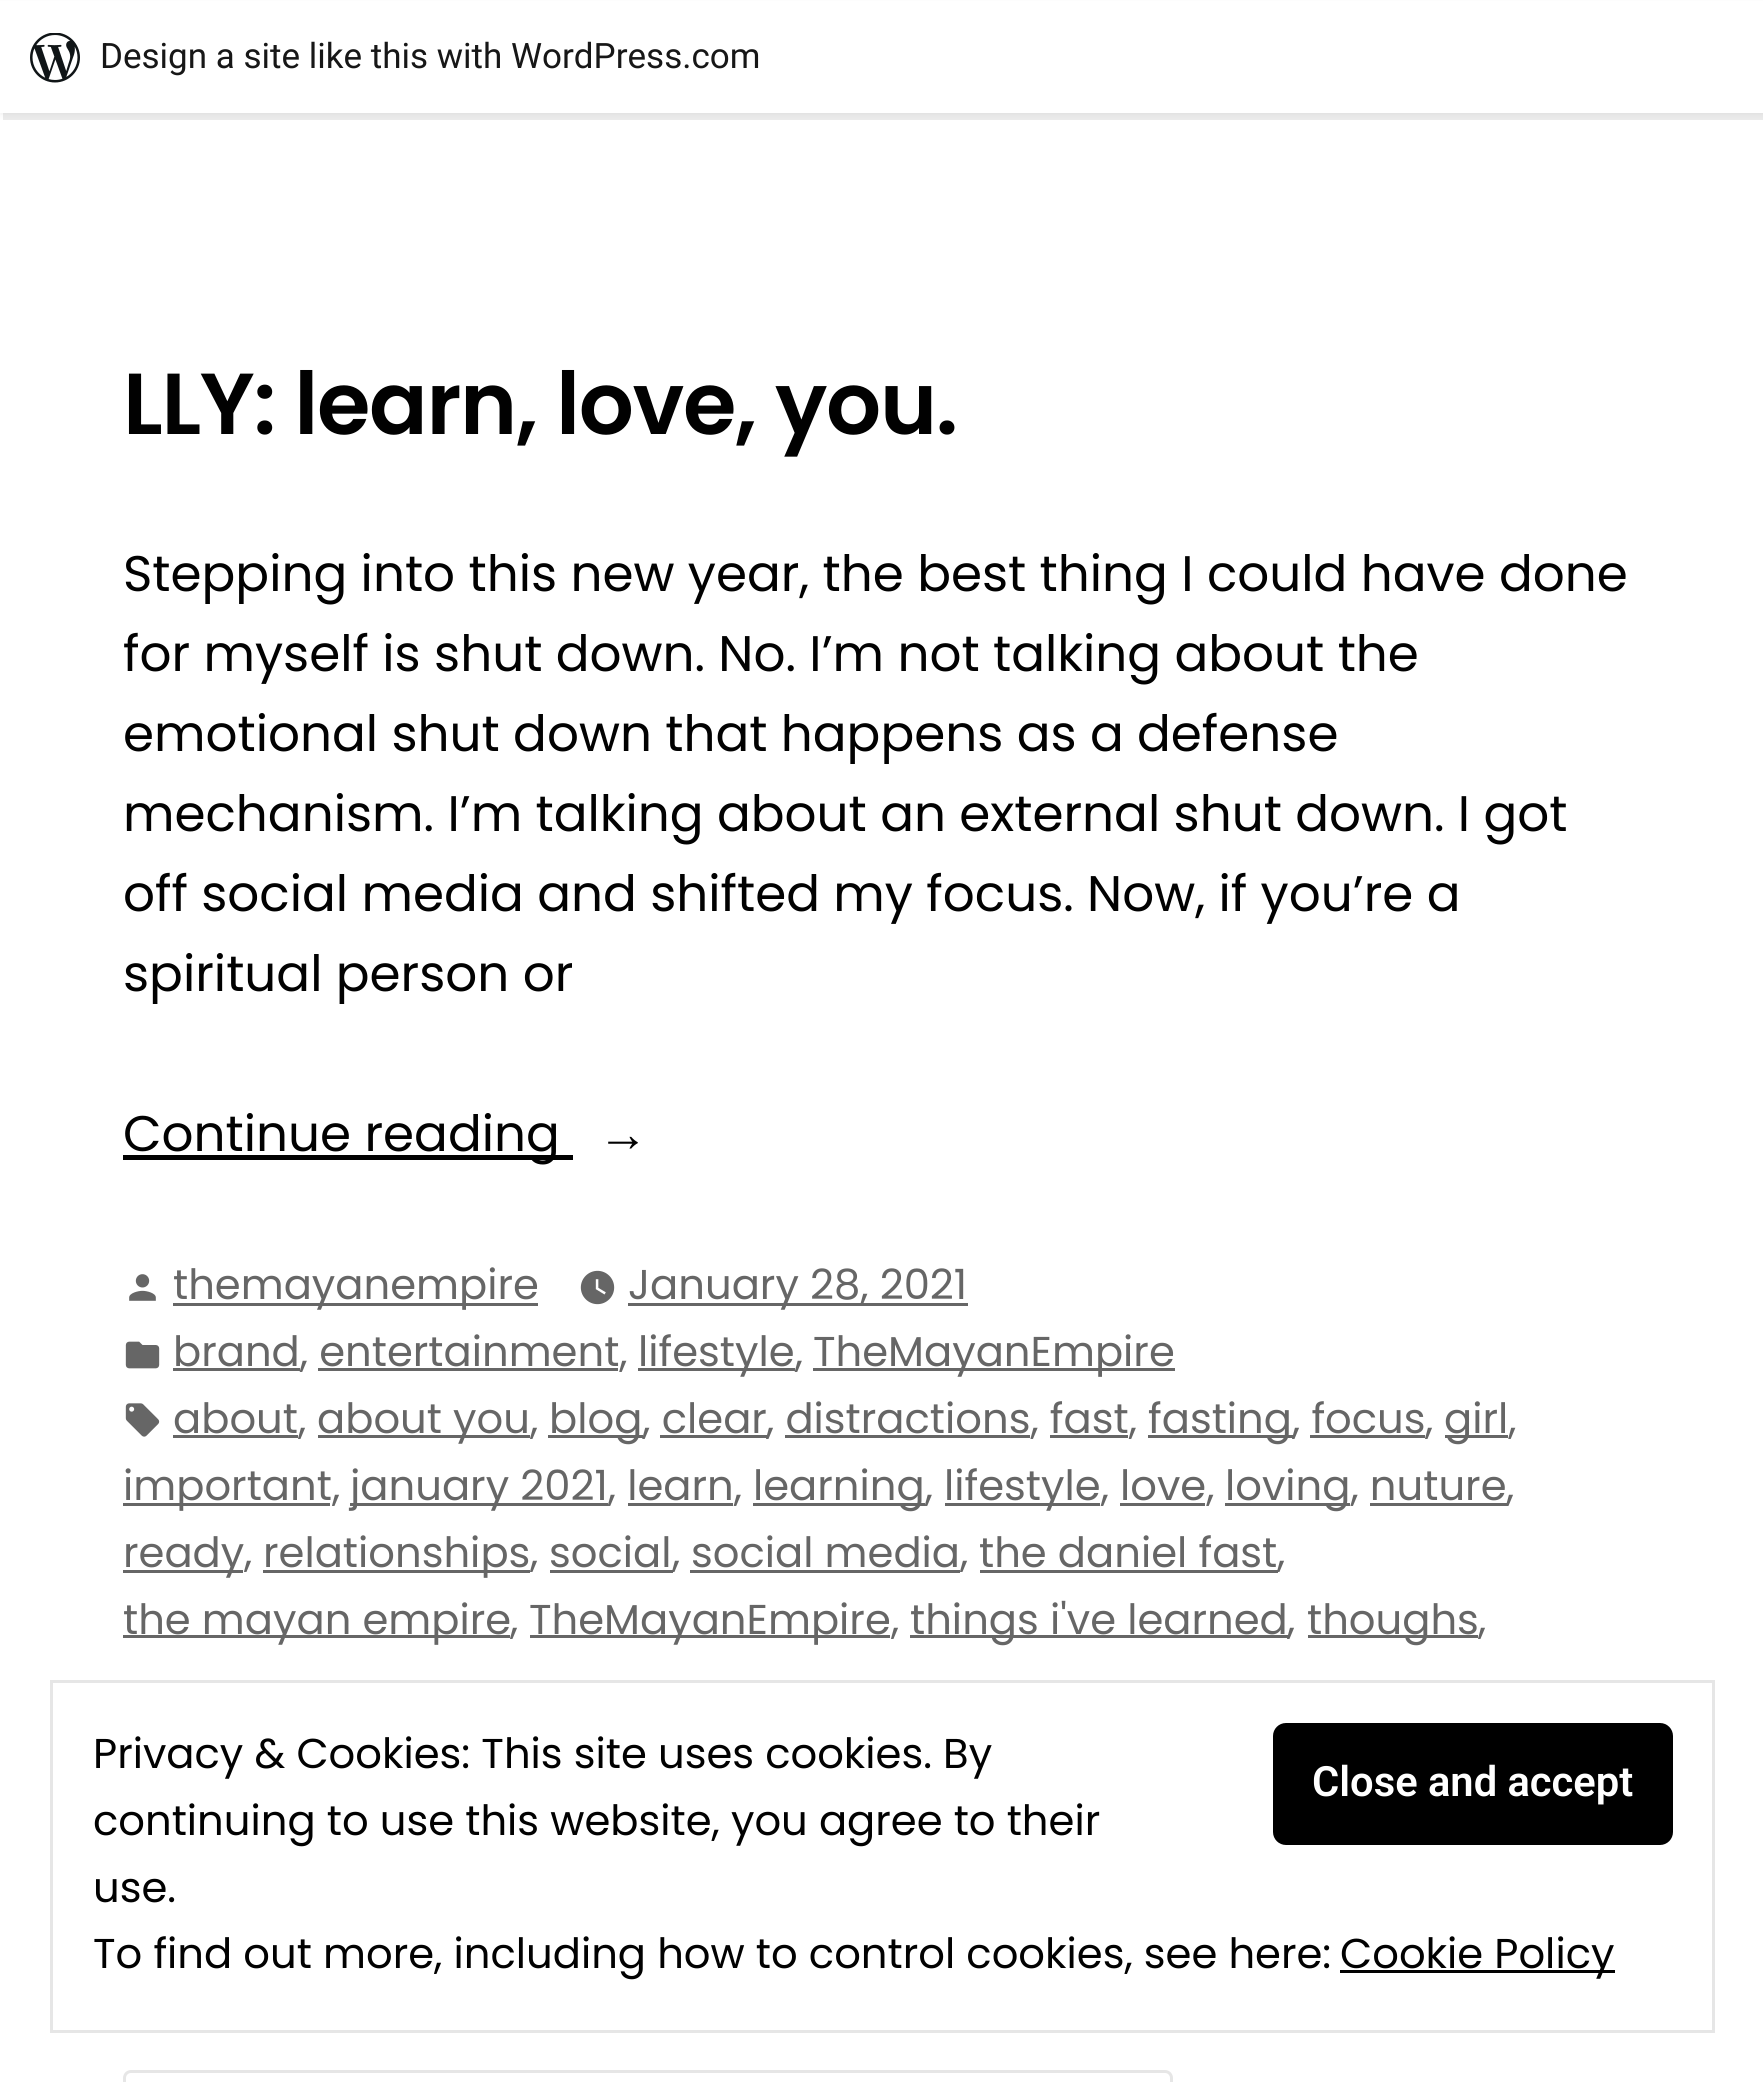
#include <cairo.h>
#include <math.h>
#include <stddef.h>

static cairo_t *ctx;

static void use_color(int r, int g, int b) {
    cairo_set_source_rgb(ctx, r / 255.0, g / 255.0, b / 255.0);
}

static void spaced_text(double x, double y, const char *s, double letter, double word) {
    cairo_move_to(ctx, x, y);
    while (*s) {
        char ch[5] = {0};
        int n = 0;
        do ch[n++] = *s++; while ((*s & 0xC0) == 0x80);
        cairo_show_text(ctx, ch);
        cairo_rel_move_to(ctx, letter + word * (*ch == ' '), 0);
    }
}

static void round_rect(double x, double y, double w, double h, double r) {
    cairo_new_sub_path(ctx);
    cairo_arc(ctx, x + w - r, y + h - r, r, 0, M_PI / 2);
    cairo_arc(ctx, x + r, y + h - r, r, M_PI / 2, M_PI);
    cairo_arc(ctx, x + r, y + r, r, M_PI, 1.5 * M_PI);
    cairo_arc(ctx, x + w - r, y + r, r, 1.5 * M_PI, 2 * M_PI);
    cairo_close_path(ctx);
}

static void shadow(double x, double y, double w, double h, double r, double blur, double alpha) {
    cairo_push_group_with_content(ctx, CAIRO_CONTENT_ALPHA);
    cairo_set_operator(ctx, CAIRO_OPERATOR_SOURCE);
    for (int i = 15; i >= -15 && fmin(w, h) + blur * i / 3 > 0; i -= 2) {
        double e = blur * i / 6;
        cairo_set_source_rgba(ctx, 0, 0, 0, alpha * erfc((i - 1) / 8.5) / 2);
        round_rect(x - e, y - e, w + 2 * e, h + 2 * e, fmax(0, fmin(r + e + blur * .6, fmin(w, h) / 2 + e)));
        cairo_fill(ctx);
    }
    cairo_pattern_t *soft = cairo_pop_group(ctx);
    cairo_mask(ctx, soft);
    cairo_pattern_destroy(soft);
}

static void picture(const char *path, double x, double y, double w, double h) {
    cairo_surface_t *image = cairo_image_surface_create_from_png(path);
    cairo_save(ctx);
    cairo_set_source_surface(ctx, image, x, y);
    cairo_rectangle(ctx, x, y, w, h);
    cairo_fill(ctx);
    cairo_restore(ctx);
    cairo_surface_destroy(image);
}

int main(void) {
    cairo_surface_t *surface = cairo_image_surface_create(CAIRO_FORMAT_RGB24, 1763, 2082);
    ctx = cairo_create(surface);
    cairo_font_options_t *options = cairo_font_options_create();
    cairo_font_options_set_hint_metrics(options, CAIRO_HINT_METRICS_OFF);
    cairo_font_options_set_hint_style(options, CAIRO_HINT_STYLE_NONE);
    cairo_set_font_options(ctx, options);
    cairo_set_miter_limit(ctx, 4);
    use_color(255, 255, 255);
    cairo_paint(ctx);
    use_color(0, 0, 0);
    shadow(0, 3, 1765, 112, 0, 2.5, 0.05);
    cairo_set_source_rgba(ctx, 0, 0, 0, 0.08);
    cairo_new_path(ctx);
    cairo_move_to(ctx, 3, 112);
    cairo_line_to(ctx, 3, 120);
    cairo_line_to(ctx, 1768, 120);
    cairo_line_to(ctx, 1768, 8);
    cairo_line_to(ctx, 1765, 8);
    cairo_line_to(ctx, 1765, 112);
    cairo_close_path(ctx);
    cairo_fill(ctx);
    use_color(255, 255, 255);
    cairo_rectangle(ctx, 0, 1, 1763, 112);
    cairo_fill(ctx);
    picture("img1.png", 30, 33, 50, 50);
    cairo_select_font_face(ctx, "Roboto", CAIRO_FONT_SLANT_NORMAL, CAIRO_FONT_WEIGHT_NORMAL);
    cairo_set_font_size(ctx, 35);
    use_color(23, 23, 23);
    cairo_move_to(ctx, 100, 68);
    cairo_show_text(ctx, "Design a site like this with WordPress.com");
    cairo_select_font_face(ctx, "Poppins SemiBold", CAIRO_FONT_SLANT_NORMAL, CAIRO_FONT_WEIGHT_NORMAL);
    cairo_set_font_size(ctx, 86.5);
    use_color(1, 1, 1);
    spaced_text(123, 434, "LLY: learn, love, you.", -1.3, 0);
    cairo_select_font_face(ctx, "Poppins", CAIRO_FONT_SLANT_NORMAL, CAIRO_FONT_WEIGHT_NORMAL);
    cairo_set_font_size(ctx, 50);
    cairo_move_to(ctx, 123, 591);
    cairo_show_text(ctx, "Stepping into this new year, the best thing I could have done");
    cairo_move_to(ctx, 123, 671);
    cairo_show_text(ctx, "for myself is shut down. No. I’m not talking about the");
    cairo_move_to(ctx, 123, 751);
    cairo_show_text(ctx, "emotional shut down that happens as a defense");
    cairo_move_to(ctx, 123, 831);
    cairo_show_text(ctx, "mechanism. I’m talking about an external shut down. I got");
    cairo_move_to(ctx, 123, 911);
    cairo_show_text(ctx, "off social media and shifted my focus. Now, if you’re a");
    cairo_move_to(ctx, 123, 991);
    cairo_show_text(ctx, "spiritual person or");
    cairo_rectangle(ctx, 123, 1155, 450, 5);
    cairo_fill(ctx);
    cairo_move_to(ctx, 123, 1151);
    cairo_show_text(ctx, "Continue reading");
    cairo_select_font_face(ctx, "Liberation Serif", CAIRO_FONT_SLANT_NORMAL, CAIRO_FONT_WEIGHT_NORMAL);
    cairo_move_to(ctx, 598, 1151);
    cairo_show_text(ctx, "→");
    picture("img2.png", 129, 1274, 27, 27);
    use_color(102, 102, 102);
    cairo_rectangle(ctx, 173, 1303, 365, 3);
    cairo_fill(ctx);
    cairo_select_font_face(ctx, "Poppins", CAIRO_FONT_SLANT_NORMAL, CAIRO_FONT_WEIGHT_NORMAL);
    cairo_set_font_size(ctx, 41.7);
    cairo_move_to(ctx, 173, 1299);
    cairo_show_text(ctx, "themayanempire");
    picture("img3.png", 580, 1270, 35, 35);
    cairo_rectangle(ctx, 628, 1303, 340, 3);
    cairo_fill(ctx);
    cairo_move_to(ctx, 628, 1299);
    cairo_show_text(ctx, "January 28, 2021");
    picture("img4.png", 125, 1341, 35, 28);
    cairo_rectangle(ctx, 173, 1368, 127, 3);
    cairo_fill(ctx);
    cairo_move_to(ctx, 173, 1366);
    cairo_show_text(ctx, "brand, entertainment,");
    cairo_rectangle(ctx, 638, 1368, 157, 3);
    cairo_fill(ctx);
    cairo_move_to(ctx, 638, 1366);
    cairo_show_text(ctx, "lifestyle,");
    cairo_rectangle(ctx, 813, 1368, 362, 3);
    cairo_fill(ctx);
    cairo_move_to(ctx, 813, 1366);
    cairo_show_text(ctx, "TheMayanEmpire");
    cairo_rectangle(ctx, 318, 1368, 300, 3);
    cairo_fill(ctx);
    picture("img5.png", 125, 1403, 35, 34);
    cairo_rectangle(ctx, 173, 1435, 125, 3);
    cairo_fill(ctx);
    cairo_move_to(ctx, 173, 1433);
    cairo_show_text(ctx, "about,");
    cairo_rectangle(ctx, 318, 1435, 212, 3);
    cairo_fill(ctx);
    cairo_move_to(ctx, 317, 1433);
    cairo_show_text(ctx, "about you,");
    cairo_rectangle(ctx, 548, 1435, 95, 3);
    cairo_fill(ctx);
    cairo_move_to(ctx, 549, 1433);
    cairo_show_text(ctx, "blog, clear");
    cairo_rectangle(ctx, 660, 1435, 108, 3);
    cairo_fill(ctx);
    cairo_move_to(ctx, 766, 1433);
    cairo_show_text(ctx, ", distractions, fast,");
    cairo_rectangle(ctx, 1148, 1435, 145, 3);
    cairo_fill(ctx);
    cairo_move_to(ctx, 1148, 1433);
    cairo_show_text(ctx, "fasting, focus");
    cairo_rectangle(ctx, 1310, 1435, 115, 3);
    cairo_fill(ctx);
    cairo_move_to(ctx, 1425, 1433);
    cairo_show_text(ctx, ",");
    cairo_rectangle(ctx, 1445, 1435, 63, 3);
    cairo_fill(ctx);
    cairo_move_to(ctx, 1444, 1433);
    cairo_show_text(ctx, "girl,");
    cairo_rectangle(ctx, 785, 1435, 245, 3);
    cairo_fill(ctx);
    cairo_rectangle(ctx, 1050, 1435, 78, 3);
    cairo_fill(ctx);
    cairo_rectangle(ctx, 123, 1503, 207, 3);
    cairo_fill(ctx);
    cairo_move_to(ctx, 123, 1500);
    cairo_show_text(ctx, "important,");
    cairo_rectangle(ctx, 350, 1503, 258, 3);
    cairo_fill(ctx);
    cairo_move_to(ctx, 350, 1500);
    cairo_show_text(ctx, "january 2021, learn,");
    cairo_rectangle(ctx, 753, 1503, 172, 3);
    cairo_fill(ctx);
    cairo_move_to(ctx, 753, 1500);
    cairo_show_text(ctx, "learning,");
    cairo_rectangle(ctx, 945, 1503, 155, 3);
    cairo_fill(ctx);
    cairo_move_to(ctx, 944, 1500);
    cairo_show_text(ctx, "lifestyle, love,");
    cairo_rectangle(ctx, 1225, 1503, 125, 3);
    cairo_fill(ctx);
    cairo_move_to(ctx, 1225, 1500);
    cairo_show_text(ctx, "loving, nuture");
    cairo_rectangle(ctx, 1370, 1503, 138, 3);
    cairo_fill(ctx);
    cairo_move_to(ctx, 1506, 1500);
    cairo_show_text(ctx, ",");
    cairo_rectangle(ctx, 628, 1503, 105, 3);
    cairo_fill(ctx);
    cairo_rectangle(ctx, 1120, 1503, 85, 3);
    cairo_fill(ctx);
    cairo_rectangle(ctx, 123, 1570, 120, 3);
    cairo_fill(ctx);
    cairo_move_to(ctx, 123, 1567);
    cairo_show_text(ctx, "ready");
    cairo_move_to(ctx, 244, 1566);
    cairo_show_text(ctx, ",");
    cairo_rectangle(ctx, 263, 1570, 267, 3);
    cairo_fill(ctx);
    cairo_move_to(ctx, 263, 1567);
    cairo_show_text(ctx, "relationships");
    cairo_move_to(ctx, 530, 1566);
    cairo_show_text(ctx, ",");
    cairo_move_to(ctx, 549, 1567);
    cairo_show_text(ctx, "social");
    cairo_rectangle(ctx, 550, 1570, 123, 3);
    cairo_fill(ctx);
    cairo_move_to(ctx, 672, 1566);
    cairo_show_text(ctx, ",");
    cairo_move_to(ctx, 691, 1567);
    cairo_show_text(ctx, "social media");
    cairo_rectangle(ctx, 690, 1570, 270, 3);
    cairo_fill(ctx);
    cairo_move_to(ctx, 960, 1566);
    cairo_show_text(ctx, ",");
    cairo_move_to(ctx, 979, 1567);
    cairo_show_text(ctx, "the daniel fast");
    cairo_rectangle(ctx, 980, 1570, 298, 3);
    cairo_fill(ctx);
    cairo_move_to(ctx, 1277, 1566);
    cairo_show_text(ctx, ",");
    cairo_rectangle(ctx, 123, 1635, 387, 3);
    cairo_fill(ctx);
    cairo_move_to(ctx, 123, 1634);
    cairo_show_text(ctx, "the mayan empire");
    cairo_move_to(ctx, 510, 1633);
    cairo_show_text(ctx, ",");
    cairo_rectangle(ctx, 530, 1635, 360, 3);
    cairo_fill(ctx);
    cairo_move_to(ctx, 529, 1634);
    cairo_show_text(ctx, "TheMayanEmpire");
    cairo_move_to(ctx, 891, 1633);
    cairo_show_text(ctx, ",");
    cairo_rectangle(ctx, 910, 1635, 378, 3);
    cairo_fill(ctx);
    cairo_move_to(ctx, 910, 1634);
    cairo_show_text(ctx, "things i've learned");
    cairo_move_to(ctx, 1287, 1633);
    cairo_show_text(ctx, ",");
    cairo_rectangle(ctx, 1308, 1635, 170, 3);
    cairo_fill(ctx);
    cairo_move_to(ctx, 1307, 1634);
    cairo_show_text(ctx, "thoughs");
    cairo_move_to(ctx, 1478, 1633);
    cairo_show_text(ctx, ",");
    round_rect(124.5, 2071.5, 1047, 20, 6.5);
    use_color(230, 230, 230);
    cairo_set_line_width(ctx, 3);
    cairo_stroke(ctx);
    cairo_rectangle(ctx, 51.5, 1681.5, 1662, 350);
    cairo_stroke(ctx);
    use_color(1, 1, 1);
    cairo_move_to(ctx, 93, 1768);
    cairo_show_text(ctx, "Privacy & Cookies: This site uses cookies. By");
    use_color(0, 0, 0);
    round_rect(1273, 1723, 400, 122, 13);
    cairo_fill(ctx);
    cairo_select_font_face(ctx, "Roboto SemiBold", CAIRO_FONT_SLANT_NORMAL, CAIRO_FONT_WEIGHT_NORMAL);
    use_color(255, 255, 255);
    cairo_move_to(ctx, 1312, 1796);
    cairo_show_text(ctx, "Close and accept");
    cairo_select_font_face(ctx, "Poppins", CAIRO_FONT_SLANT_NORMAL, CAIRO_FONT_WEIGHT_NORMAL);
    use_color(1, 1, 1);
    cairo_move_to(ctx, 93, 1835);
    cairo_show_text(ctx, "continuing to use this website, you agree to their");
    cairo_move_to(ctx, 93, 1902);
    cairo_show_text(ctx, "use.");
    cairo_move_to(ctx, 93, 1968);
    cairo_show_text(ctx, "To find out more, including how to control cookies, see here:");
    cairo_rectangle(ctx, 1340, 1970, 275, 3);
    cairo_fill(ctx);
    cairo_move_to(ctx, 1340, 1968);
    cairo_show_text(ctx, "Cookie Policy");
    cairo_surface_write_to_png(surface, "result.png");
    cairo_font_options_destroy(options);
    cairo_destroy(ctx);
    cairo_surface_destroy(surface);
    return 0;
}
